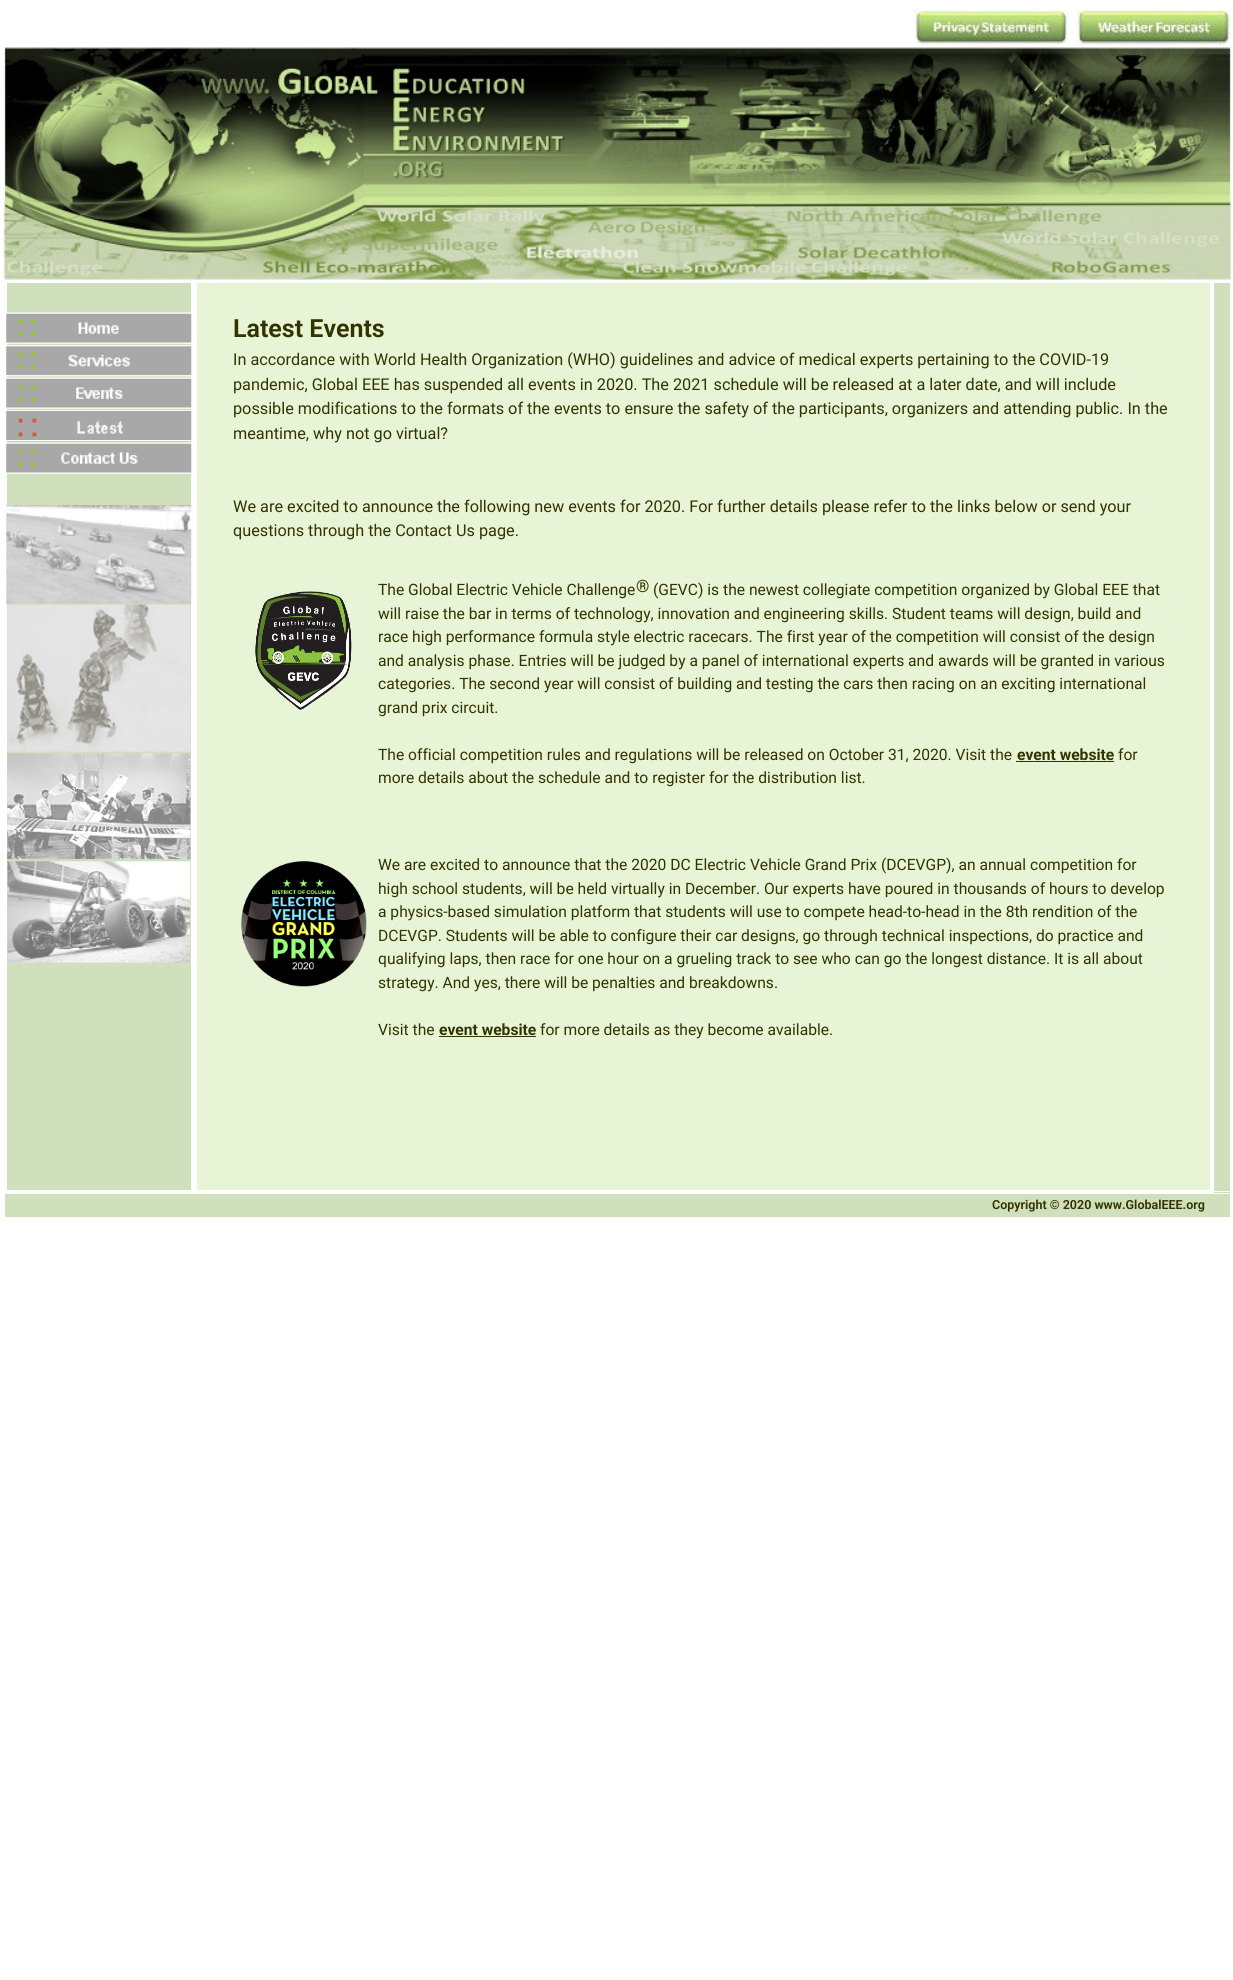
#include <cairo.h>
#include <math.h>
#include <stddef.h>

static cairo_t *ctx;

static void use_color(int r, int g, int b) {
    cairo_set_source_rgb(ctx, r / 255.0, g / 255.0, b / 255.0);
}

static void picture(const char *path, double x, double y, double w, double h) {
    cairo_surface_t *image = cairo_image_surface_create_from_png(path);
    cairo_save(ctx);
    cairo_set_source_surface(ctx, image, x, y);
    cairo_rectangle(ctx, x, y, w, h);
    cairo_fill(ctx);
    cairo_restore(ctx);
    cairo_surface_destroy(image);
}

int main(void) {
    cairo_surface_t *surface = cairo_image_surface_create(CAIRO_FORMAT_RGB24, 1233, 1980);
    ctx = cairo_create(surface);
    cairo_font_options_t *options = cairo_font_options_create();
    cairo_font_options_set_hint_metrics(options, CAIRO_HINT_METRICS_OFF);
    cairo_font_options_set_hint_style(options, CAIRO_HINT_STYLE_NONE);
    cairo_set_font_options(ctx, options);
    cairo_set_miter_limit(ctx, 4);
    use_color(255, 255, 255);
    cairo_paint(ctx);
    picture("img1.png", 913, 10, 156, 36);
    picture("img2.png", 1076, 10, 156, 36);
    picture("img3.png", 3, 47, 1229, 233);
    use_color(208, 224, 188);
    cairo_rectangle(ctx, 7, 283, 184, 907);
    cairo_fill(ctx);
    picture("img4.png", 6, 312, 186, 32);
    picture("img5.png", 6, 345, 186, 32);
    picture("img6.png", 6, 377, 186, 32);
    picture("img7.png", 6, 410, 186, 32);
    use_color(255, 255, 255);
    cairo_rectangle(ctx, 6, 410, 185, 1);
    cairo_fill(ctx);
    cairo_rectangle(ctx, 6, 440, 185, 1);
    cairo_fill(ctx);
    picture("img8.png", 6, 442, 186, 32);
    picture("img9.png", 6, 505, 186, 99);
    picture("img10.png", 7, 604, 184, 148);
    picture("img11.png", 7, 753, 184, 107);
    picture("img12.png", 7, 861, 184, 102);
    use_color(231, 245, 214);
    cairo_rectangle(ctx, 197, 283, 1013, 907);
    cairo_fill(ctx);
    cairo_select_font_face(ctx, "Roboto SemiBold", CAIRO_FONT_SLANT_NORMAL, CAIRO_FONT_WEIGHT_NORMAL);
    cairo_set_font_size(ctx, 25);
    use_color(51, 51, 0);
    cairo_move_to(ctx, 233, 337);
    cairo_show_text(ctx, "Latest Events");
    cairo_select_font_face(ctx, "Roboto", CAIRO_FONT_SLANT_NORMAL, CAIRO_FONT_WEIGHT_NORMAL);
    cairo_set_font_size(ctx, 16.25);
    cairo_move_to(ctx, 233, 365);
    cairo_show_text(ctx, "In accordance with World Health Organization (WHO) guidelines and advice of medical experts pertaining to the COVID-19");
    cairo_move_to(ctx, 233, 390);
    cairo_show_text(ctx, "pandemic, Global EEE has suspended all events in 2020. The 2021 schedule will be released at a later date, and will include");
    cairo_move_to(ctx, 233, 414);
    cairo_show_text(ctx, "possible modifications to the formats of the events to ensure the safety of the participants, organizers and attending public. In the");
    cairo_move_to(ctx, 233, 439);
    cairo_show_text(ctx, "meantime, why not go virtual?");
    cairo_move_to(ctx, 233, 512);
    cairo_show_text(ctx, "We are excited to announce the following new events for 2020. For further details please refer to the links below or send your");
    cairo_move_to(ctx, 233, 536);
    cairo_show_text(ctx, "questions through the Contact Us page.");
    picture("img13.png", 255, 591, 97, 119);
    cairo_set_font_size(ctx, 15.62);
    cairo_move_to(ctx, 378, 595);
    cairo_show_text(ctx, "The Global Electric Vehicle Challenge");
    cairo_set_font_size(ctx, 17);
    cairo_move_to(ctx, 636, 592);
    cairo_show_text(ctx, "®");
    cairo_set_font_size(ctx, 15.62);
    cairo_move_to(ctx, 653, 595);
    cairo_show_text(ctx, "(GEVC) is the newest collegiate competition organized by Global EEE that");
    cairo_move_to(ctx, 378, 619);
    cairo_show_text(ctx, "will raise the bar in terms of technology, innovation and engineering skills. Student teams will design, build and");
    cairo_move_to(ctx, 378, 642);
    cairo_show_text(ctx, "race high performance formula style electric racecars. The first year of the competition will consist of the design");
    cairo_move_to(ctx, 378, 666);
    cairo_show_text(ctx, "and analysis phase. Entries will be judged by a panel of international experts and awards will be granted in various");
    cairo_move_to(ctx, 378, 689);
    cairo_show_text(ctx, "categories. The second year will consist of building and testing the cars then racing on an exciting international");
    cairo_move_to(ctx, 378, 713);
    cairo_show_text(ctx, "grand prix circuit.");
    cairo_move_to(ctx, 378, 760);
    cairo_show_text(ctx, "The official competition rules and regulations will be released on October 31, 2020. Visit the");
    cairo_select_font_face(ctx, "Roboto", CAIRO_FONT_SLANT_NORMAL, CAIRO_FONT_WEIGHT_BOLD);
    cairo_move_to(ctx, 1017, 760);
    cairo_show_text(ctx, "event website");
    cairo_rectangle(ctx, 1016, 761, 98, 1);
    cairo_fill(ctx);
    cairo_select_font_face(ctx, "Roboto", CAIRO_FONT_SLANT_NORMAL, CAIRO_FONT_WEIGHT_NORMAL);
    cairo_move_to(ctx, 1118, 760);
    cairo_show_text(ctx, "for");
    cairo_move_to(ctx, 378, 783);
    cairo_show_text(ctx, "more details about the schedule and to register for the distribution list.");
    picture("img14.png", 241, 861, 126, 126);
    cairo_move_to(ctx, 378, 870);
    cairo_show_text(ctx, "We are excited to announce that the 2020 DC Electric Vehicle Grand Prix (DCEVGP), an annual competition for");
    cairo_move_to(ctx, 378, 894);
    cairo_show_text(ctx, "high school students, will be held virtually in December. Our experts have poured in thousands of hours to develop");
    cairo_move_to(ctx, 378, 917);
    cairo_show_text(ctx, "a physics-based simulation platform that students will use to compete head-to-head in the 8th rendition of the");
    cairo_move_to(ctx, 378, 941);
    cairo_show_text(ctx, "DCEVGP. Students will be able to configure their car designs, go through technical inspections, do practice and");
    cairo_move_to(ctx, 378, 964);
    cairo_show_text(ctx, "qualifying laps, then race for one hour on a grueling track to see who can go the longest distance. It is all about");
    cairo_move_to(ctx, 378, 988);
    cairo_show_text(ctx, "strategy. And yes, there will be penalties and breakdowns.");
    cairo_move_to(ctx, 378, 1035);
    cairo_show_text(ctx, "Visit the");
    cairo_select_font_face(ctx, "Roboto", CAIRO_FONT_SLANT_NORMAL, CAIRO_FONT_WEIGHT_BOLD);
    cairo_move_to(ctx, 439, 1035);
    cairo_show_text(ctx, "event website");
    cairo_rectangle(ctx, 439, 1036, 97, 1);
    cairo_fill(ctx);
    cairo_select_font_face(ctx, "Roboto", CAIRO_FONT_SLANT_NORMAL, CAIRO_FONT_WEIGHT_NORMAL);
    cairo_move_to(ctx, 540, 1035);
    cairo_show_text(ctx, "for more details as they become available.");
    use_color(208, 224, 188);
    cairo_rectangle(ctx, 1214, 283, 16, 910);
    cairo_fill(ctx);
    use_color(255, 255, 255);
    cairo_rectangle(ctx, 1214, 1191, 16, 1);
    cairo_fill(ctx);
    use_color(208, 224, 188);
    cairo_rectangle(ctx, 5, 1194, 1225, 23);
    cairo_fill(ctx);
    cairo_select_font_face(ctx, "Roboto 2 SemiBold", CAIRO_FONT_SLANT_NORMAL, CAIRO_FONT_WEIGHT_NORMAL);
    cairo_set_font_size(ctx, 12.5);
    use_color(51, 51, 0);
    cairo_move_to(ctx, 992, 1209);
    cairo_show_text(ctx, "Copyright © 2020 www.GlobalEEE.org");
    cairo_surface_write_to_png(surface, "result.png");
    cairo_font_options_destroy(options);
    cairo_destroy(ctx);
    cairo_surface_destroy(surface);
    return 0;
}
